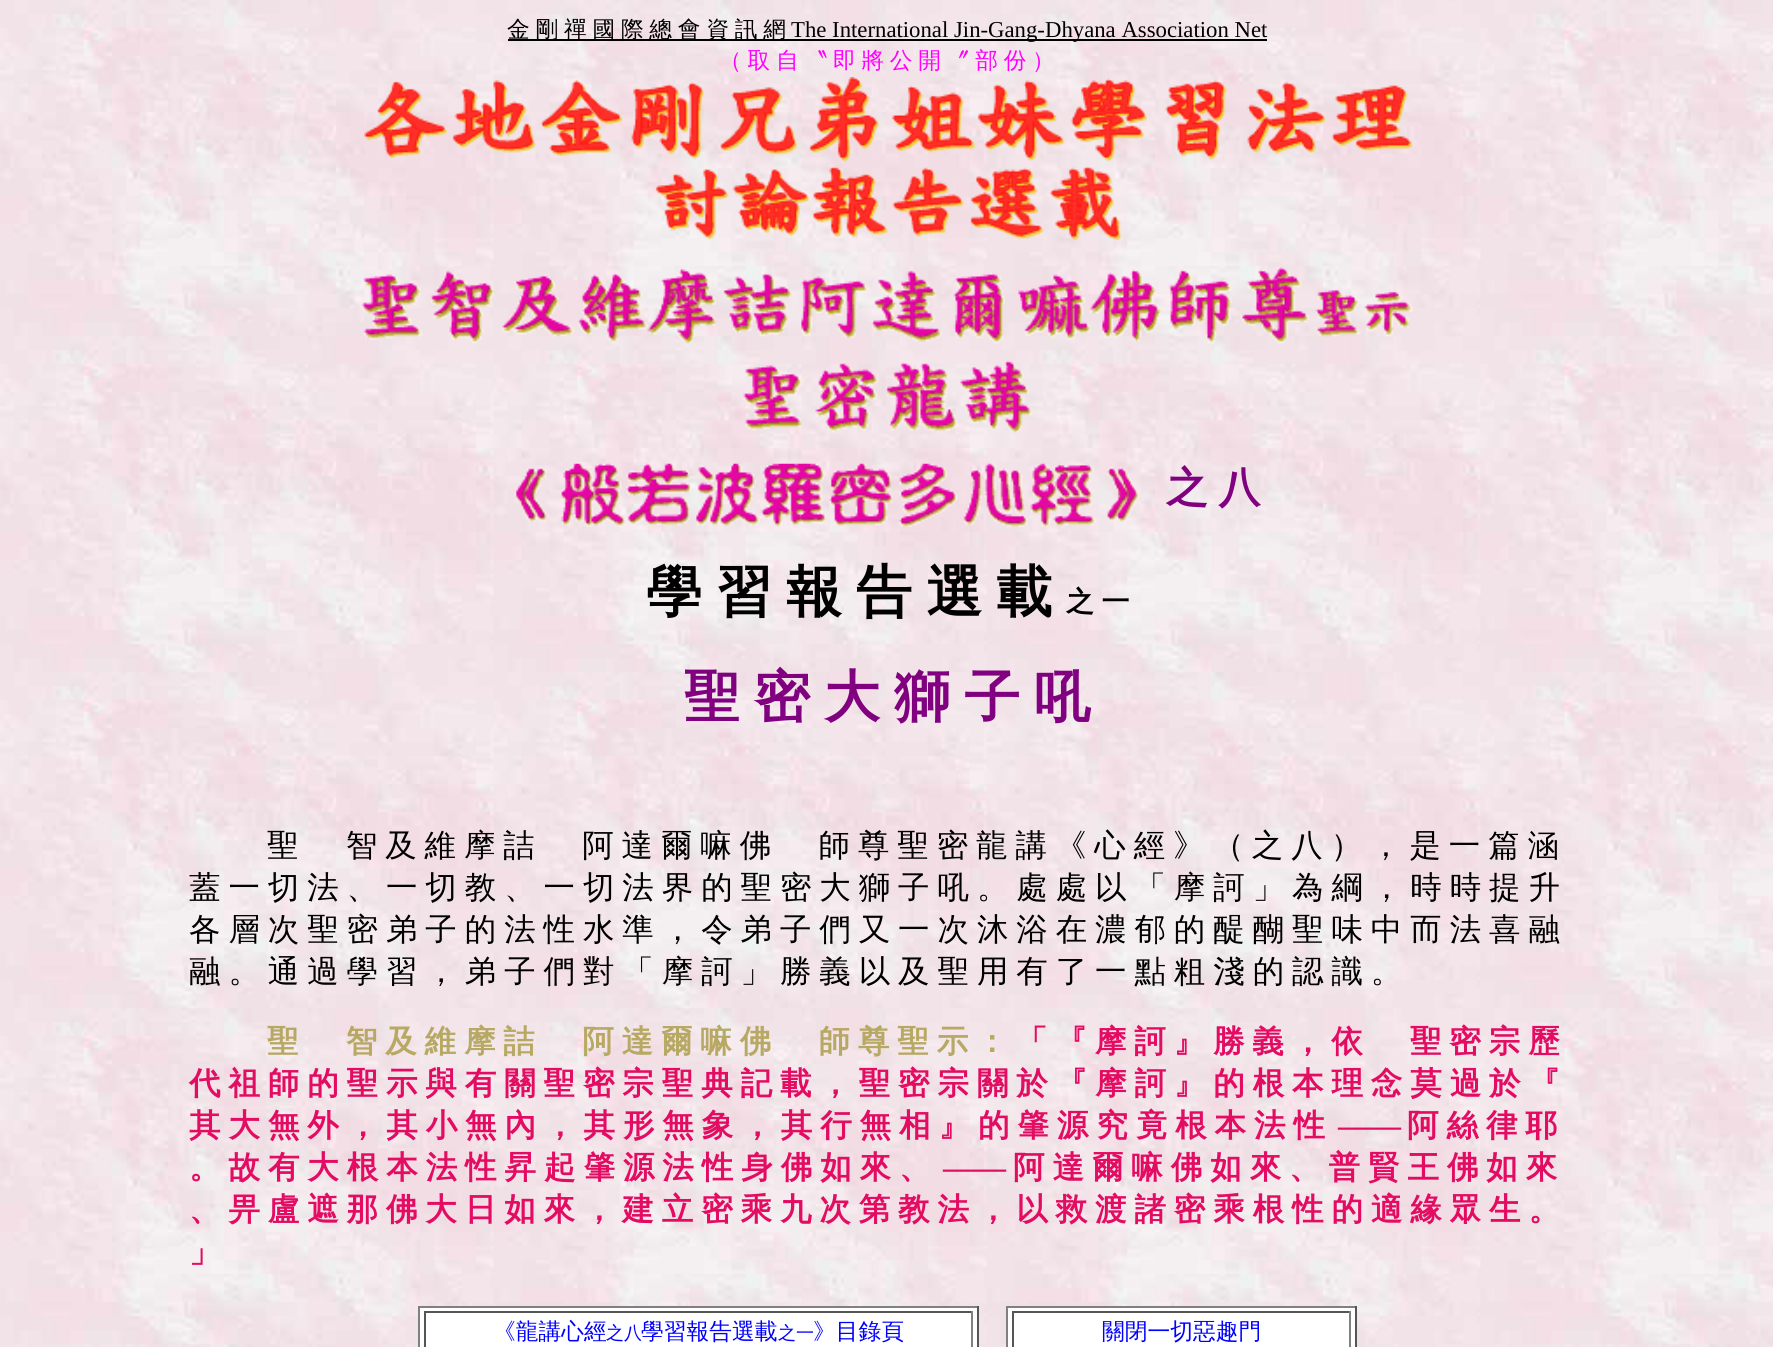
#include <cairo.h>
#include <math.h>
#include <stddef.h>

static cairo_t *ctx;

static void use_color(int r, int g, int b) {
    cairo_set_source_rgb(ctx, r / 255.0, g / 255.0, b / 255.0);
}

static void spaced_text(double x, double y, const char *s, double letter, double word) {
    cairo_move_to(ctx, x, y);
    while (*s) {
        char ch[5] = {0};
        int n = 0;
        do ch[n++] = *s++; while ((*s & 0xC0) == 0x80);
        cairo_show_text(ctx, ch);
        cairo_rel_move_to(ctx, letter + word * (*ch == ' '), 0);
    }
}

static void picture(const char *path, double x, double y, double w, double h) {
    cairo_surface_t *image = cairo_image_surface_create_from_png(path);
    cairo_save(ctx);
    cairo_set_source_surface(ctx, image, x, y);
    cairo_rectangle(ctx, x, y, w, h);
    cairo_fill(ctx);
    cairo_restore(ctx);
    cairo_surface_destroy(image);
}

int main(void) {
    cairo_surface_t *surface = cairo_image_surface_create(CAIRO_FORMAT_RGB24, 1773, 1347);
    ctx = cairo_create(surface);
    cairo_font_options_t *options = cairo_font_options_create();
    cairo_font_options_set_hint_metrics(options, CAIRO_HINT_METRICS_OFF);
    cairo_font_options_set_hint_style(options, CAIRO_HINT_STYLE_NONE);
    cairo_set_font_options(ctx, options);
    cairo_set_miter_limit(ctx, 4);
    use_color(255, 255, 255);
    cairo_paint(ctx);
    picture("img1.png", 0, 0, 1773, 1347);
    use_color(0, 0, 0);
    cairo_rectangle(ctx, 508, 39, 759, 2);
    cairo_fill(ctx);
    cairo_select_font_face(ctx, "WenQuanYi Zen Hei Medium", CAIRO_FONT_SLANT_NORMAL, CAIRO_FONT_WEIGHT_NORMAL);
    cairo_set_font_size(ctx, 22.75);
    spaced_text(507, 37, "金 剛 禪 國 際 總 會 資 訊 網", 0, -1.1);
    cairo_select_font_face(ctx, "Liberation Serif", CAIRO_FONT_SLANT_NORMAL, CAIRO_FONT_WEIGHT_NORMAL);
    cairo_move_to(ctx, 791, 37);
    cairo_show_text(ctx, "The International Jin-Gang-Dhyana Association Net");
    cairo_select_font_face(ctx, "WenQuanYi Zen Hei Medium", CAIRO_FONT_SLANT_NORMAL, CAIRO_FONT_WEIGHT_NORMAL);
    use_color(255, 0, 255);
    spaced_text(719, 68, "（ 取 自 〝 即 將 公 開 〞 部 份", 0, -1.1);
    cairo_move_to(ctx, 1032, 68);
    cairo_show_text(ctx, "）");
    picture("img2.png", 364, 77, 1049, 163);
    picture("img3.png", 362, 267, 1051, 166);
    picture("img4.png", 514, 463, 625, 64);
    cairo_select_font_face(ctx, "WenQuanYi Zen Hei", CAIRO_FONT_SLANT_NORMAL, CAIRO_FONT_WEIGHT_BOLD);
    cairo_set_font_size(ctx, 42);
    use_color(128, 0, 128);
    spaced_text(1166, 502, "之 八", 0, -2);
    cairo_set_font_size(ctx, 56);
    use_color(0, 0, 0);
    spaced_text(646, 611, "學 習 報 告 選 載", 0, -2.75);
    cairo_set_font_size(ctx, 28);
    spaced_text(1066, 611, "之 一", 0, -1);
    cairo_set_font_size(ctx, 56);
    use_color(128, 0, 128);
    spaced_text(684, 716, "聖 密 大 獅 子 吼", 0, -2.75);
    cairo_select_font_face(ctx, "WenQuanYi Zen Hei Medium", CAIRO_FONT_SLANT_NORMAL, CAIRO_FONT_WEIGHT_NORMAL);
    cairo_set_font_size(ctx, 31.5);
    use_color(0, 0, 0);
    spaced_text(267, 856, "聖 　 智 及 維 摩 詰 　 阿 達 爾 嘛 佛 　 師 尊 聖 密 龍 講 《 心 經 》 （ 之 八 ） ， 是 一 篇 涵", 0, -1.55);
    spaced_text(189, 898, "蓋 一 切 法 、 一 切 教 、 一 切 法 界 的 聖 密 大 獅 子 吼 。 處 處 以 「 摩 訶 」 為 綱 ， 時 時 提 升", 0, -1.55);
    spaced_text(189, 940, "各 層 次 聖 密 弟 子 的 法 性 水 準 ， 令 弟 子 們 又 一 次 沐 浴 在 濃 郁 的 醍 醐 聖 味 中 而 法 喜 融", 0, -1.55);
    spaced_text(189, 982, "融 。 通 過 學 習 ， 弟 子 們 對 「 摩 訶 」 勝 義 以 及 聖 用 有 了 一 點 粗 淺 的 認 識 。", 0, -1.55);
    cairo_select_font_face(ctx, "WenQuanYi Zen Hei", CAIRO_FONT_SLANT_NORMAL, CAIRO_FONT_WEIGHT_BOLD);
    use_color(183, 168, 99);
    spaced_text(267, 1052, "聖 　 智 及 維 摩 詰 　 阿 達 爾 嘛 佛 　 師 尊 聖 示 ：", 0, -1.55);
    use_color(227, 11, 98);
    spaced_text(1016, 1052, "「 『 摩 訶 』 勝 義 ， 依 　 聖 密 宗 歷", 0, -1.55);
    spaced_text(189, 1094, "代 祖 師 的 聖 示 與 有 關 聖 密 宗 聖 典 記 載 ， 聖 密 宗 關 於 『 摩 訶 』 的 根 本 理 念 莫 過 於 『", 0, -1.55);
    spaced_text(189, 1136, "其 大 無 外 ， 其 小 無 內 ， 其 形 無 象 ， 其 行 無 相 』 的 肇 源 究 竟 根 本 法 性", 0, -1.5);
    cairo_select_font_face(ctx, "Liberation Serif", CAIRO_FONT_SLANT_NORMAL, CAIRO_FONT_WEIGHT_BOLD);
    cairo_move_to(ctx, 1338, 1136);
    cairo_show_text(ctx, "——");
    cairo_select_font_face(ctx, "WenQuanYi Zen Hei", CAIRO_FONT_SLANT_NORMAL, CAIRO_FONT_WEIGHT_BOLD);
    spaced_text(1407, 1136, "阿 絲 律 耶", 0, -1.5);
    spaced_text(189, 1178, "。 故 有 大 根 本 法 性 昇 起 肇 源 法 性 身 佛 如 來 、", 0, -1.5);
    cairo_select_font_face(ctx, "Liberation Serif", CAIRO_FONT_SLANT_NORMAL, CAIRO_FONT_WEIGHT_BOLD);
    cairo_move_to(ctx, 943, 1178);
    cairo_show_text(ctx, "——");
    cairo_select_font_face(ctx, "WenQuanYi Zen Hei", CAIRO_FONT_SLANT_NORMAL, CAIRO_FONT_WEIGHT_BOLD);
    spaced_text(1013, 1178, "阿 達 爾 嘛 佛 如 來 、 普 賢 王 佛 如 來", 0, -1.5);
    spaced_text(189, 1220, "、 畀 盧 遮 那 佛 大 日 如 來 ， 建 立 密 乘 九 次 第 教 法 ， 以 救 渡 諸 密 乘 根 性 的 適 緣 眾 生 。", 0, -1.55);
    cairo_move_to(ctx, 189, 1262);
    cairo_show_text(ctx, "」");
    use_color(255, 255, 255);
    cairo_rectangle(ctx, 420, 1308, 557, 39);
    cairo_fill(ctx);
    use_color(128, 128, 128);
    cairo_rectangle(ctx, 418, 1306, 560, 2);
    cairo_fill(ctx);
    use_color(85, 85, 85);
    cairo_rectangle(ctx, 977, 1306, 2, 41);
    cairo_fill(ctx);
    use_color(128, 128, 128);
    cairo_rectangle(ctx, 418, 1306, 2, 41);
    cairo_fill(ctx);
    use_color(85, 85, 85);
    cairo_rectangle(ctx, 424, 1311, 549, 2);
    cairo_fill(ctx);
    use_color(128, 128, 128);
    cairo_rectangle(ctx, 971, 1311, 2, 36);
    cairo_fill(ctx);
    use_color(85, 85, 85);
    cairo_rectangle(ctx, 424, 1311, 2, 36);
    cairo_fill(ctx);
    cairo_select_font_face(ctx, "WenQuanYi Zen Hei Medium", CAIRO_FONT_SLANT_NORMAL, CAIRO_FONT_WEIGHT_NORMAL);
    cairo_set_font_size(ctx, 22.75);
    use_color(0, 0, 255);
    cairo_move_to(ctx, 493, 1339);
    cairo_show_text(ctx, "《龍講心經");
    cairo_set_font_size(ctx, 18);
    cairo_move_to(ctx, 606, 1339);
    cairo_show_text(ctx, "之八");
    cairo_set_font_size(ctx, 22.75);
    cairo_move_to(ctx, 641, 1339);
    cairo_show_text(ctx, "學習報告選載");
    cairo_set_font_size(ctx, 18);
    cairo_move_to(ctx, 778, 1339);
    cairo_show_text(ctx, "之一");
    cairo_set_font_size(ctx, 22.75);
    cairo_move_to(ctx, 813, 1339);
    cairo_show_text(ctx, "》目錄頁");
    use_color(255, 255, 255);
    cairo_rectangle(ctx, 1008, 1308, 347, 39);
    cairo_fill(ctx);
    use_color(128, 128, 128);
    cairo_rectangle(ctx, 1006, 1306, 350, 2);
    cairo_fill(ctx);
    use_color(85, 85, 85);
    cairo_rectangle(ctx, 1355, 1306, 2, 41);
    cairo_fill(ctx);
    use_color(128, 128, 128);
    cairo_rectangle(ctx, 1006, 1306, 2, 41);
    cairo_fill(ctx);
    use_color(85, 85, 85);
    cairo_rectangle(ctx, 1012, 1311, 339, 2);
    cairo_fill(ctx);
    use_color(128, 128, 128);
    cairo_rectangle(ctx, 1349, 1311, 2, 36);
    cairo_fill(ctx);
    use_color(85, 85, 85);
    cairo_rectangle(ctx, 1012, 1311, 2, 36);
    cairo_fill(ctx);
    use_color(0, 0, 255);
    cairo_move_to(ctx, 1102, 1339);
    cairo_show_text(ctx, "關閉一切惡趣門");
    cairo_surface_write_to_png(surface, "result.png");
    cairo_font_options_destroy(options);
    cairo_destroy(ctx);
    cairo_surface_destroy(surface);
    return 0;
}
